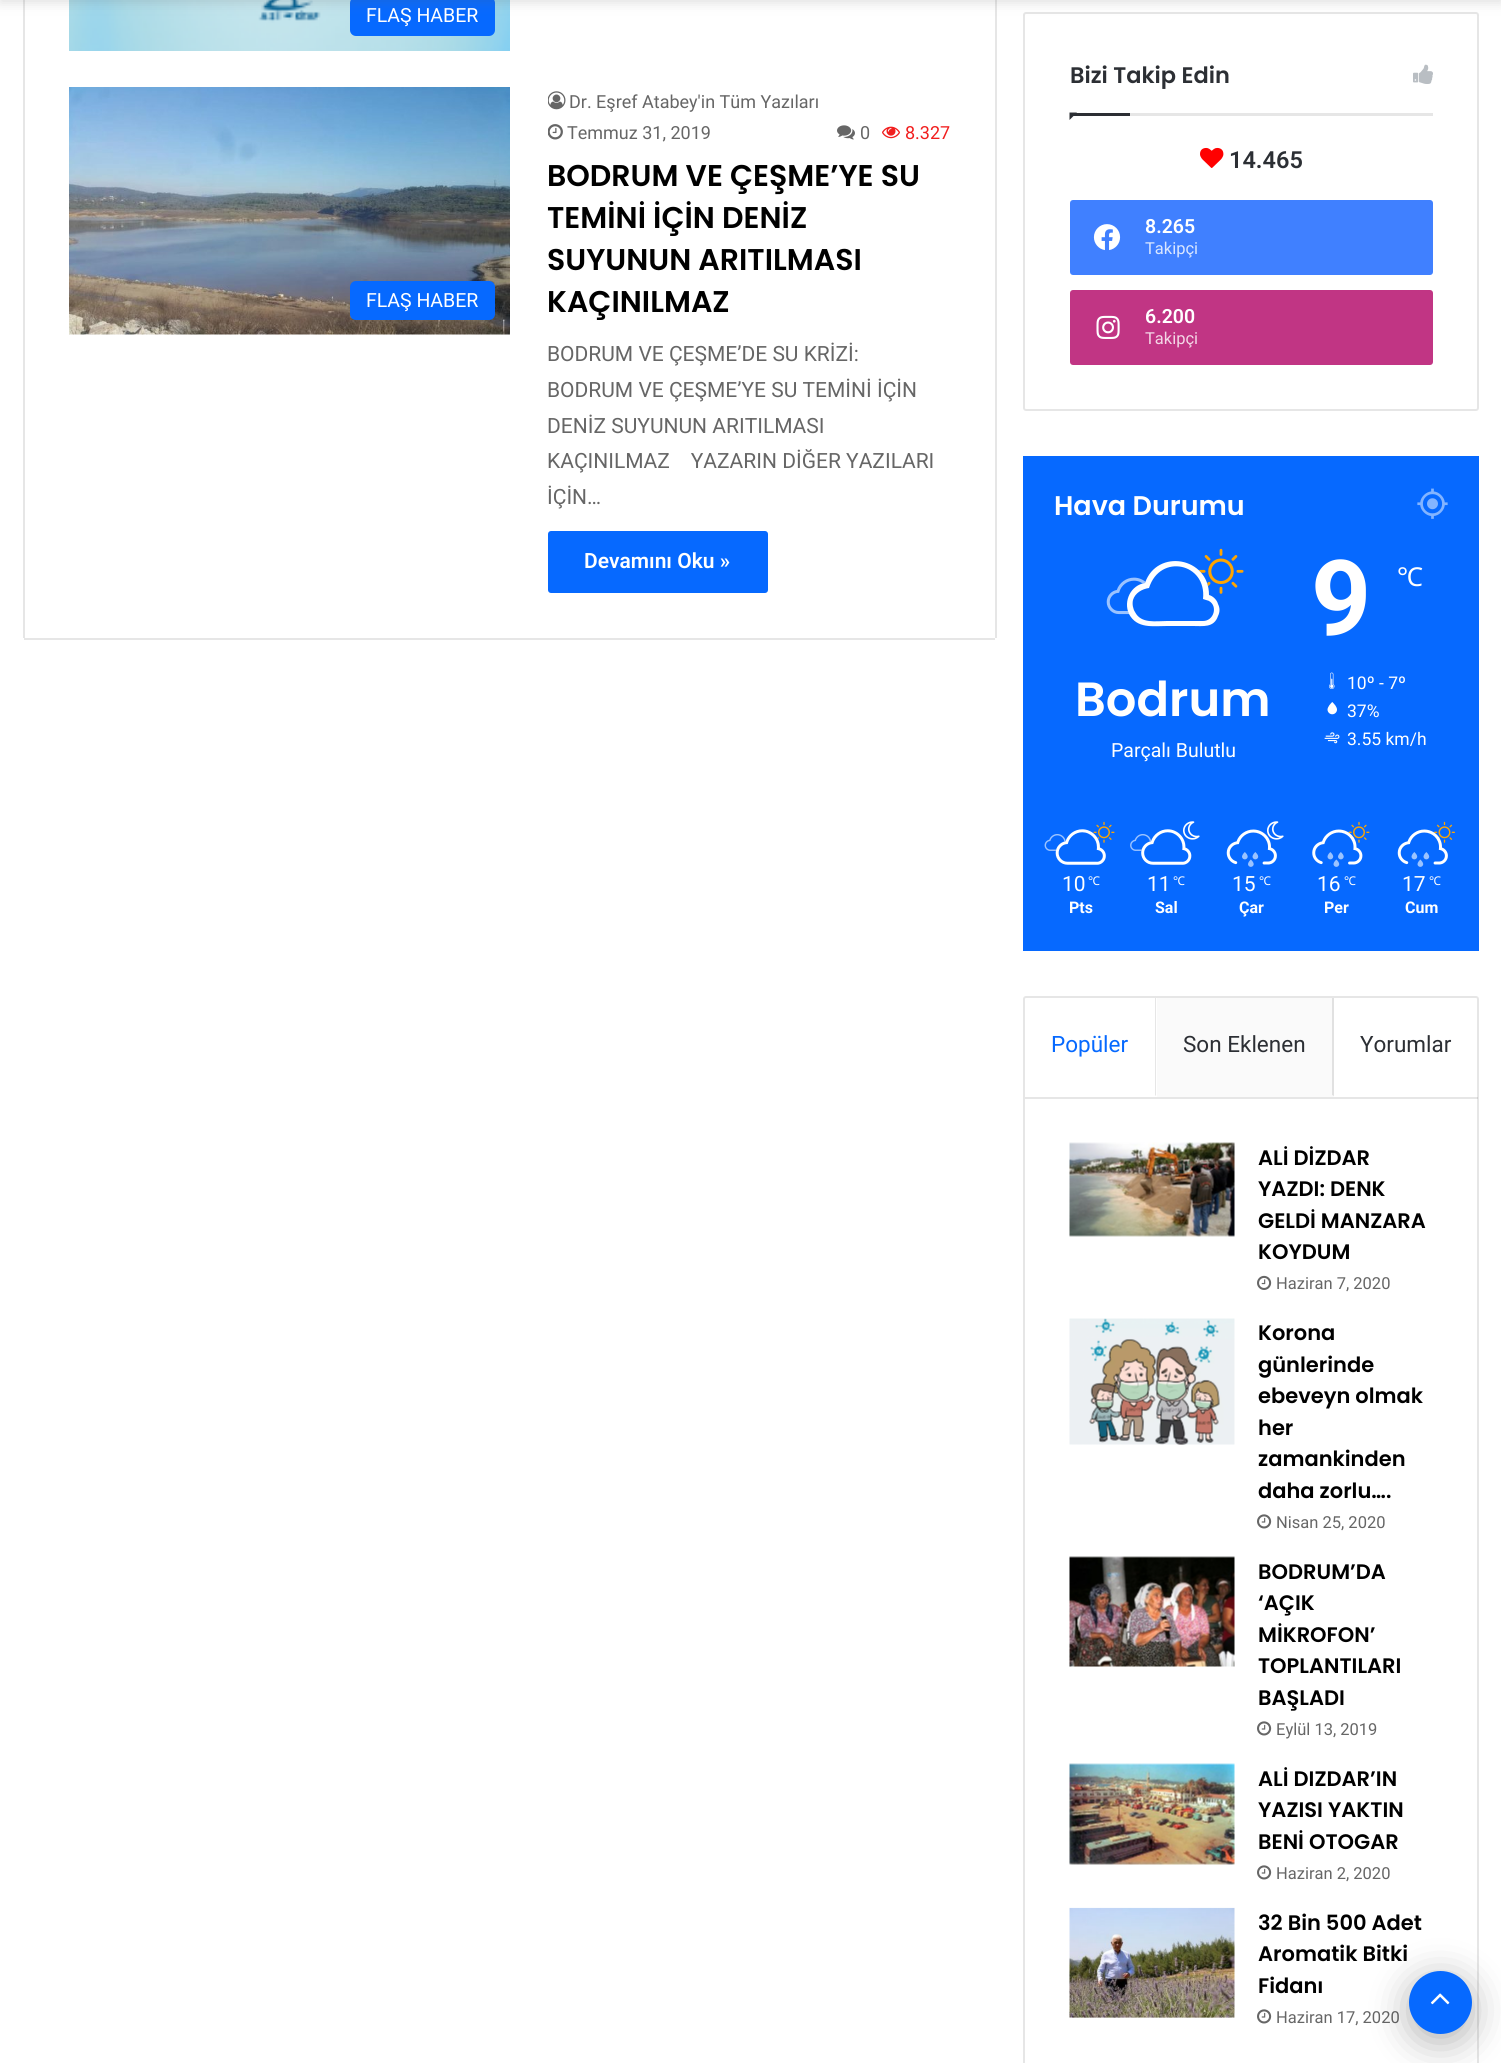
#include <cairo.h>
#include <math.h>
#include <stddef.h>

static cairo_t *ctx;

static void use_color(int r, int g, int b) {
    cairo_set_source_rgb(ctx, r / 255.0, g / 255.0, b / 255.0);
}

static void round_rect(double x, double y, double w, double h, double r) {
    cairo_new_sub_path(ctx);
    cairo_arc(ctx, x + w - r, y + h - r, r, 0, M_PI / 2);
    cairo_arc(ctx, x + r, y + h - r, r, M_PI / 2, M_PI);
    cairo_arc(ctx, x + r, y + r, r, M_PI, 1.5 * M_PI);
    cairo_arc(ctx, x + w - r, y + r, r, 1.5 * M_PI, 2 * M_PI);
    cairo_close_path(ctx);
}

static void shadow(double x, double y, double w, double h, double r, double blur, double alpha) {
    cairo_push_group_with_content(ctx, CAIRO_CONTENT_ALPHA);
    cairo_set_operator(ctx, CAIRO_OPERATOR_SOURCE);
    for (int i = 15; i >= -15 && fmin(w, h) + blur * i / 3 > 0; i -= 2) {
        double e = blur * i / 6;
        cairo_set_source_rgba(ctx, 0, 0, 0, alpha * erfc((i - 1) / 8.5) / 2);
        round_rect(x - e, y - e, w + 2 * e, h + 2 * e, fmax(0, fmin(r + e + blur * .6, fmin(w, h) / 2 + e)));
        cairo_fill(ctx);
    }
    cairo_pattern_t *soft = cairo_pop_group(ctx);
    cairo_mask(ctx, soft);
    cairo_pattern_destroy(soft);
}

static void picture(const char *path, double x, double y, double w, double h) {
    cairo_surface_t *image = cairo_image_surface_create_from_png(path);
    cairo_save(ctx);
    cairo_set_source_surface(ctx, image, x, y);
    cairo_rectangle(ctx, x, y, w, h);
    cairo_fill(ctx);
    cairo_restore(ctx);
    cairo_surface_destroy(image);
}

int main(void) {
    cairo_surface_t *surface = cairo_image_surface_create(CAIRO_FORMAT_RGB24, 1501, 2063);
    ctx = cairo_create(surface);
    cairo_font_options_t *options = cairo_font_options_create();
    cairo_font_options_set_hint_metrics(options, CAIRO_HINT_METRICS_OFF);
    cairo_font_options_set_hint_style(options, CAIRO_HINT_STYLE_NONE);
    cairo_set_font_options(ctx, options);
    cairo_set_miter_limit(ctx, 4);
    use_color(255, 255, 255);
    cairo_paint(ctx);
    use_color(230, 230, 230);
    cairo_rectangle(ctx, 995, 0, 2, 638);
    cairo_fill(ctx);
    cairo_rectangle(ctx, 23, 0, 2, 638);
    cairo_fill(ctx);
    picture("img1.png", 69, 0, 441, 51);
    use_color(6, 105, 255);
    round_rect(350, -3, 145, 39, 6);
    cairo_fill(ctx);
    round_rect(1024, 13, 454, 397, 2);
    use_color(230, 230, 230);
    cairo_stroke(ctx);
    use_color(99, 99, 99);
    shadow(0, -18, 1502, 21, 0, 6, 0.2);
    use_color(230, 230, 230);
    cairo_rectangle(ctx, 24, 638, 971, 2);
    cairo_fill(ctx);
    cairo_select_font_face(ctx, "Roboto", CAIRO_FONT_SLANT_NORMAL, CAIRO_FONT_WEIGHT_NORMAL);
    cairo_set_font_size(ctx, 19.5);
    use_color(255, 255, 255);
    cairo_move_to(ctx, 366, 22);
    cairo_show_text(ctx, "FLAŞ HABER");
    picture("img2.png", 69, 87, 441, 248);
    use_color(6, 105, 255);
    round_rect(350, 281, 145, 39, 6);
    cairo_fill(ctx);
    use_color(255, 255, 255);
    cairo_move_to(ctx, 366, 307);
    cairo_show_text(ctx, "FLAŞ HABER");
    picture("img3.png", 548, 91, 18, 19);
    cairo_set_font_size(ctx, 18);
    use_color(102, 102, 102);
    cairo_move_to(ctx, 569, 108);
    cairo_show_text(ctx, "Dr. Eşref Atabey'in Tüm Yazıları");
    picture("img4.png", 548, 124, 15, 16);
    cairo_move_to(ctx, 567, 139);
    cairo_show_text(ctx, "Temmuz 31, 2019");
    picture("img5.png", 837, 125, 18, 15);
    cairo_move_to(ctx, 860, 139);
    cairo_show_text(ctx, "0");
    picture("img6.png", 882, 126, 18, 13);
    use_color(241, 30, 30);
    cairo_move_to(ctx, 905, 139);
    cairo_show_text(ctx, "8.327");
    cairo_select_font_face(ctx, "Poppins SemiBold", CAIRO_FONT_SLANT_NORMAL, CAIRO_FONT_WEIGHT_NORMAL);
    cairo_set_font_size(ctx, 30);
    use_color(0, 0, 0);
    cairo_move_to(ctx, 547, 186);
    cairo_show_text(ctx, "BODRUM VE ÇEŞME’YE SU");
    cairo_move_to(ctx, 547, 228);
    cairo_show_text(ctx, "TEMİNİ İÇİN DENİZ");
    cairo_move_to(ctx, 547, 270);
    cairo_show_text(ctx, "SUYUNUN ARITILMASI");
    cairo_move_to(ctx, 547, 312);
    cairo_show_text(ctx, "KAÇINILMAZ");
    cairo_select_font_face(ctx, "Roboto", CAIRO_FONT_SLANT_NORMAL, CAIRO_FONT_WEIGHT_NORMAL);
    cairo_set_font_size(ctx, 21);
    use_color(102, 102, 102);
    cairo_move_to(ctx, 547, 361);
    cairo_show_text(ctx, "BODRUM VE ÇEŞME’DE SU KRİZİ:");
    cairo_move_to(ctx, 547, 397);
    cairo_show_text(ctx, "BODRUM VE ÇEŞME’YE SU TEMİNİ İÇİN");
    cairo_move_to(ctx, 547, 433);
    cairo_show_text(ctx, "DENİZ SUYUNUN ARITILMASI");
    cairo_move_to(ctx, 547, 468);
    cairo_show_text(ctx, "KAÇINILMAZ    YAZARIN DİĞER YAZILARI");
    cairo_move_to(ctx, 547, 504);
    cairo_show_text(ctx, "İÇİN…");
    use_color(6, 105, 255);
    round_rect(548, 531, 220, 62, 3);
    cairo_fill(ctx);
    cairo_select_font_face(ctx, "Roboto SemiBold", CAIRO_FONT_SLANT_NORMAL, CAIRO_FONT_WEIGHT_NORMAL);
    use_color(255, 255, 255);
    cairo_move_to(ctx, 584, 568);
    cairo_show_text(ctx, "Devamını Oku »");
    use_color(230, 230, 230);
    cairo_rectangle(ctx, 1130, 113, 303, 3);
    cairo_fill(ctx);
    cairo_select_font_face(ctx, "Poppins SemiBold", CAIRO_FONT_SLANT_NORMAL, CAIRO_FONT_WEIGHT_NORMAL);
    cairo_set_font_size(ctx, 22.5);
    use_color(44, 47, 52);
    cairo_move_to(ctx, 1070, 83);
    cairo_show_text(ctx, "Bizi Takip Edin");
    picture("img7.png", 1413, 64, 20, 20);
    cairo_new_path(ctx);
    cairo_move_to(ctx, 1069.5, 112.5);
    cairo_line_to(ctx, 1077, 112.5);
    cairo_line_to(ctx, 1069.5, 120);
    cairo_close_path(ctx);
    cairo_fill(ctx);
    cairo_rectangle(ctx, 1070, 113, 60, 3);
    cairo_fill(ctx);
    picture("img8.png", 1200, 147, 24, 21);
    cairo_select_font_face(ctx, "Roboto SemiBold", CAIRO_FONT_SLANT_NORMAL, CAIRO_FONT_WEIGHT_NORMAL);
    cairo_set_font_size(ctx, 23.5);
    cairo_move_to(ctx, 1229, 168);
    cairo_show_text(ctx, "14.465");
    use_color(64, 128, 255);
    round_rect(1070, 200, 363, 75, 3);
    cairo_fill(ctx);
    picture("img9.png", 1093, 224, 28, 27);
    cairo_set_font_size(ctx, 19.5);
    use_color(255, 255, 255);
    cairo_move_to(ctx, 1145, 233);
    cairo_show_text(ctx, "8.265");
    cairo_select_font_face(ctx, "Roboto", CAIRO_FONT_SLANT_NORMAL, CAIRO_FONT_WEIGHT_NORMAL);
    cairo_set_font_size(ctx, 16.5);
    use_color(217, 230, 255);
    cairo_move_to(ctx, 1145, 254);
    cairo_show_text(ctx, "Takipçi");
    use_color(193, 53, 132);
    round_rect(1070, 290, 363, 75, 3);
    cairo_fill(ctx);
    picture("img10.png", 1096, 315, 24, 24);
    cairo_select_font_face(ctx, "Roboto SemiBold", CAIRO_FONT_SLANT_NORMAL, CAIRO_FONT_WEIGHT_NORMAL);
    cairo_set_font_size(ctx, 19.5);
    use_color(255, 255, 255);
    cairo_move_to(ctx, 1145, 323);
    cairo_show_text(ctx, "6.200");
    cairo_select_font_face(ctx, "Roboto", CAIRO_FONT_SLANT_NORMAL, CAIRO_FONT_WEIGHT_NORMAL);
    cairo_set_font_size(ctx, 16.5);
    use_color(243, 215, 230);
    cairo_move_to(ctx, 1145, 344);
    cairo_show_text(ctx, "Takipçi");
    use_color(6, 105, 255);
    cairo_rectangle(ctx, 1023, 456, 456, 495);
    cairo_fill(ctx);
    cairo_select_font_face(ctx, "Poppins SemiBold", CAIRO_FONT_SLANT_NORMAL, CAIRO_FONT_WEIGHT_NORMAL);
    cairo_set_font_size(ctx, 27);
    use_color(255, 255, 255);
    cairo_move_to(ctx, 1054, 515);
    cairo_show_text(ctx, "Hava Durumu");
    picture("img11.png", 1417, 488, 31, 31);
    picture("img12.png", 1198, 548, 46, 46);
    picture("img13.png", 1106, 577, 40, 38);
    picture("img14.png", 1128, 570, 80, 45);
    cairo_new_path(ctx);
    cairo_move_to(ctx, 1209, 595);
    cairo_curve_to(ctx, 1213, 596, 1217, 600, 1218, 604);
    cairo_curve_to(ctx, 1220, 608, 1220, 612, 1218, 616);
    cairo_curve_to(ctx, 1214, 628, 1203, 626, 1193, 626);
    cairo_line_to(ctx, 1167, 626);
    cairo_curve_to(ctx, 1153, 626, 1137, 629, 1129, 614);
    cairo_curve_to(ctx, 1123, 601, 1131, 585, 1145, 583);
    cairo_curve_to(ctx, 1157, 548, 1209, 557, 1209, 595);
    cairo_close_path(ctx);
    cairo_move_to(ctx, 1203, 621);
    cairo_curve_to(ctx, 1214, 621, 1218, 606, 1209, 601);
    cairo_line_to(ctx, 1203, 599);
    cairo_curve_to(ctx, 1207, 563, 1160, 553, 1149, 588);
    cairo_curve_to(ctx, 1142, 589, 1135, 593, 1133, 600);
    cairo_curve_to(ctx, 1132, 604, 1133, 609, 1135, 612);
    cairo_curve_to(ctx, 1141, 624, 1156, 621, 1167, 621);
    cairo_close_path(ctx);
    cairo_fill(ctx);
    cairo_set_font_size(ctx, 48);
    cairo_move_to(ctx, 1075, 716);
    cairo_show_text(ctx, "Bodrum");
    cairo_select_font_face(ctx, "Roboto", CAIRO_FONT_SLANT_NORMAL, CAIRO_FONT_WEIGHT_NORMAL);
    cairo_set_font_size(ctx, 19.5);
    cairo_move_to(ctx, 1111, 757);
    cairo_show_text(ctx, "Parçalı Bulutlu");
    cairo_select_font_face(ctx, "Roboto", CAIRO_FONT_SLANT_NORMAL, CAIRO_FONT_WEIGHT_BOLD);
    cairo_set_font_size(ctx, 105);
    cairo_move_to(ctx, 1311, 635);
    cairo_show_text(ctx, "9");
    cairo_select_font_face(ctx, "Noto Sans", CAIRO_FONT_SLANT_NORMAL, CAIRO_FONT_WEIGHT_NORMAL);
    cairo_set_font_size(ctx, 26);
    cairo_move_to(ctx, 1397, 586);
    cairo_show_text(ctx, "℃");
    picture("img15.png", 1329, 672, 6, 17);
    cairo_select_font_face(ctx, "Roboto", CAIRO_FONT_SLANT_NORMAL, CAIRO_FONT_WEIGHT_NORMAL);
    cairo_set_font_size(ctx, 17.5);
    cairo_move_to(ctx, 1347, 689);
    cairo_show_text(ctx, "10º - 7º");
    picture("img16.png", 1327, 702, 10, 13);
    cairo_move_to(ctx, 1347, 717);
    cairo_show_text(ctx, "37%");
    picture("img17.png", 1324, 732, 16, 12);
    cairo_move_to(ctx, 1347, 745);
    cairo_show_text(ctx, "3.55 km/h");
    picture("img18.png", 1093, 821, 22, 22);
    picture("img20.png", 1044, 834, 22, 17);
    picture("img21.png", 1055, 837, 43, 14);
    picture("img19.png", 1055, 829, 51, 36);
    cairo_set_font_size(ctx, 21);
    cairo_move_to(ctx, 1062, 891);
    cairo_show_text(ctx, "10");
    cairo_select_font_face(ctx, "Noto Sans", CAIRO_FONT_SLANT_NORMAL, CAIRO_FONT_WEIGHT_NORMAL);
    cairo_set_font_size(ctx, 12);
    cairo_move_to(ctx, 1088, 885);
    cairo_show_text(ctx, "℃");
    cairo_select_font_face(ctx, "Roboto", CAIRO_FONT_SLANT_NORMAL, CAIRO_FONT_WEIGHT_BOLD);
    cairo_set_font_size(ctx, 16);
    cairo_move_to(ctx, 1069, 913);
    cairo_show_text(ctx, "Pts");
    picture("img22.png", 1183, 821, 17, 19);
    picture("img24.png", 1130, 834, 22, 17);
    picture("img25.png", 1141, 840, 14, 11);
    picture("img23.png", 1141, 829, 51, 36);
    cairo_select_font_face(ctx, "Roboto", CAIRO_FONT_SLANT_NORMAL, CAIRO_FONT_WEIGHT_NORMAL);
    cairo_set_font_size(ctx, 21);
    cairo_move_to(ctx, 1147, 891);
    cairo_show_text(ctx, "11");
    cairo_select_font_face(ctx, "Noto Sans", CAIRO_FONT_SLANT_NORMAL, CAIRO_FONT_WEIGHT_NORMAL);
    cairo_set_font_size(ctx, 12);
    cairo_move_to(ctx, 1173, 885);
    cairo_show_text(ctx, "℃");
    cairo_select_font_face(ctx, "Roboto", CAIRO_FONT_SLANT_NORMAL, CAIRO_FONT_WEIGHT_BOLD);
    cairo_set_font_size(ctx, 16);
    cairo_move_to(ctx, 1155, 913);
    cairo_show_text(ctx, "Sal");
    picture("img22.png", 1267, 821, 17, 19);
    picture("img26.png", 1226, 829, 51, 36);
    picture("img27.png", 1242, 852, 6, 8);
    picture("img28.png", 1252, 852, 7, 8);
    picture("img29.png", 1248, 859, 6, 8);
    cairo_select_font_face(ctx, "Roboto", CAIRO_FONT_SLANT_NORMAL, CAIRO_FONT_WEIGHT_NORMAL);
    cairo_set_font_size(ctx, 21);
    cairo_move_to(ctx, 1232, 891);
    cairo_show_text(ctx, "15");
    cairo_select_font_face(ctx, "Noto Sans", CAIRO_FONT_SLANT_NORMAL, CAIRO_FONT_WEIGHT_NORMAL);
    cairo_set_font_size(ctx, 12);
    cairo_move_to(ctx, 1259, 885);
    cairo_show_text(ctx, "℃");
    cairo_select_font_face(ctx, "Roboto", CAIRO_FONT_SLANT_NORMAL, CAIRO_FONT_WEIGHT_BOLD);
    cairo_set_font_size(ctx, 16);
    cairo_move_to(ctx, 1239, 913);
    cairo_show_text(ctx, "Çar");
    picture("img18.png", 1348, 821, 22, 22);
    picture("img31.png", 1351, 839, 1, 1);
    picture("img30.png", 1312, 829, 51, 36);
    picture("img28.png", 1327, 852, 7, 8);
    picture("img27.png", 1338, 852, 6, 8);
    picture("img32.png", 1333, 859, 7, 8);
    cairo_select_font_face(ctx, "Roboto", CAIRO_FONT_SLANT_NORMAL, CAIRO_FONT_WEIGHT_NORMAL);
    cairo_set_font_size(ctx, 21);
    cairo_move_to(ctx, 1317, 891);
    cairo_show_text(ctx, "16");
    cairo_select_font_face(ctx, "Noto Sans", CAIRO_FONT_SLANT_NORMAL, CAIRO_FONT_WEIGHT_NORMAL);
    cairo_set_font_size(ctx, 12);
    cairo_move_to(ctx, 1344, 885);
    cairo_show_text(ctx, "℃");
    cairo_select_font_face(ctx, "Roboto", CAIRO_FONT_SLANT_NORMAL, CAIRO_FONT_WEIGHT_BOLD);
    cairo_set_font_size(ctx, 16);
    cairo_move_to(ctx, 1324, 913);
    cairo_show_text(ctx, "Per");
    picture("img33.png", 1434, 821, 21, 22);
    picture("img35.png", 1436, 838, 2, 2);
    picture("img34.png", 1397, 829, 51, 36);
    picture("img28.png", 1411, 852, 7, 8);
    picture("img28.png", 1423, 852, 7, 8);
    picture("img36.png", 1417, 859, 7, 8);
    cairo_select_font_face(ctx, "Roboto", CAIRO_FONT_SLANT_NORMAL, CAIRO_FONT_WEIGHT_NORMAL);
    cairo_set_font_size(ctx, 21);
    cairo_move_to(ctx, 1402, 891);
    cairo_show_text(ctx, "17");
    cairo_select_font_face(ctx, "Noto Sans", CAIRO_FONT_SLANT_NORMAL, CAIRO_FONT_WEIGHT_NORMAL);
    cairo_set_font_size(ctx, 12);
    cairo_move_to(ctx, 1429, 885);
    cairo_show_text(ctx, "℃");
    cairo_select_font_face(ctx, "Roboto", CAIRO_FONT_SLANT_NORMAL, CAIRO_FONT_WEIGHT_BOLD);
    cairo_set_font_size(ctx, 16);
    cairo_move_to(ctx, 1405, 913);
    cairo_show_text(ctx, "Cum");
    round_rect(1024, 997, 454, 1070, 2);
    use_color(230, 230, 230);
    cairo_stroke(ctx);
    cairo_set_source_rgba(ctx, 0, 0, 0, 0.1);
    cairo_rectangle(ctx, 1025, 1097, 453, 2);
    cairo_fill(ctx);
    use_color(230, 230, 230);
    cairo_new_path(ctx);
    cairo_move_to(ctx, 1156, 998);
    cairo_line_to(ctx, 1156, 1096);
    cairo_line_to(ctx, 1155, 1095);
    cairo_line_to(ctx, 1155, 998);
    cairo_close_path(ctx);
    cairo_fill(ctx);
    cairo_select_font_face(ctx, "Roboto", CAIRO_FONT_SLANT_NORMAL, CAIRO_FONT_WEIGHT_NORMAL);
    cairo_set_font_size(ctx, 22.5);
    use_color(6, 105, 255);
    cairo_move_to(ctx, 1051, 1052);
    cairo_show_text(ctx, "Popüler");
    use_color(250, 250, 250);
    cairo_rectangle(ctx, 1157, 998, 177, 99);
    cairo_fill(ctx);
    use_color(225, 225, 225);
    cairo_new_path(ctx);
    cairo_move_to(ctx, 1334, 998);
    cairo_line_to(ctx, 1334, 1096);
    cairo_line_to(ctx, 1332, 1095);
    cairo_line_to(ctx, 1332, 998);
    cairo_close_path(ctx);
    cairo_fill(ctx);
    use_color(44, 47, 52);
    cairo_move_to(ctx, 1183, 1052);
    cairo_show_text(ctx, "Son Eklenen");
    cairo_move_to(ctx, 1360, 1052);
    cairo_show_text(ctx, "Yorumlar");
    picture("img37.png", 1069, 1142, 166, 95);
    cairo_select_font_face(ctx, "Poppins SemiBold", CAIRO_FONT_SLANT_NORMAL, CAIRO_FONT_WEIGHT_NORMAL);
    cairo_set_font_size(ctx, 21);
    use_color(0, 0, 0);
    cairo_move_to(ctx, 1258, 1165);
    cairo_show_text(ctx, "ALİ DİZDAR");
    cairo_move_to(ctx, 1258, 1196);
    cairo_show_text(ctx, "YAZDI: DENK");
    cairo_move_to(ctx, 1258, 1228);
    cairo_show_text(ctx, "GELDİ MANZARA");
    cairo_move_to(ctx, 1258, 1259);
    cairo_show_text(ctx, "KOYDUM");
    picture("img38.png", 1257, 1275, 15, 15);
    cairo_select_font_face(ctx, "Roboto", CAIRO_FONT_SLANT_NORMAL, CAIRO_FONT_WEIGHT_NORMAL);
    cairo_set_font_size(ctx, 16.5);
    use_color(102, 102, 102);
    cairo_move_to(ctx, 1276, 1289);
    cairo_show_text(ctx, "Haziran 7, 2020");
    picture("img39.png", 1069, 1318, 166, 127);
    cairo_select_font_face(ctx, "Poppins SemiBold", CAIRO_FONT_SLANT_NORMAL, CAIRO_FONT_WEIGHT_NORMAL);
    cairo_set_font_size(ctx, 21);
    use_color(0, 0, 0);
    cairo_move_to(ctx, 1258, 1340);
    cairo_show_text(ctx, "Korona");
    cairo_move_to(ctx, 1258, 1372);
    cairo_show_text(ctx, "günlerinde");
    cairo_move_to(ctx, 1258, 1403);
    cairo_show_text(ctx, "ebeveyn olmak");
    cairo_move_to(ctx, 1258, 1435);
    cairo_show_text(ctx, "her");
    cairo_move_to(ctx, 1258, 1466);
    cairo_show_text(ctx, "zamankinden");
    cairo_move_to(ctx, 1258, 1498);
    cairo_show_text(ctx, "daha zorlu….");
    picture("img40.png", 1257, 1514, 15, 15);
    cairo_select_font_face(ctx, "Roboto", CAIRO_FONT_SLANT_NORMAL, CAIRO_FONT_WEIGHT_NORMAL);
    cairo_set_font_size(ctx, 16.5);
    use_color(102, 102, 102);
    cairo_move_to(ctx, 1276, 1528);
    cairo_show_text(ctx, "Nisan 25, 2020");
    picture("img41.png", 1069, 1556, 166, 111);
    cairo_select_font_face(ctx, "Poppins SemiBold", CAIRO_FONT_SLANT_NORMAL, CAIRO_FONT_WEIGHT_NORMAL);
    cairo_set_font_size(ctx, 21);
    use_color(0, 0, 0);
    cairo_move_to(ctx, 1258, 1579);
    cairo_show_text(ctx, "BODRUM’DA");
    cairo_move_to(ctx, 1258, 1610);
    cairo_show_text(ctx, "‘AÇIK");
    cairo_move_to(ctx, 1258, 1642);
    cairo_show_text(ctx, "MİKROFON’");
    cairo_move_to(ctx, 1258, 1673);
    cairo_show_text(ctx, "TOPLANTILARI");
    cairo_move_to(ctx, 1258, 1705);
    cairo_show_text(ctx, "BAŞLADI");
    picture("img40.png", 1257, 1721, 15, 15);
    cairo_select_font_face(ctx, "Roboto", CAIRO_FONT_SLANT_NORMAL, CAIRO_FONT_WEIGHT_NORMAL);
    cairo_set_font_size(ctx, 16.5);
    use_color(102, 102, 102);
    cairo_move_to(ctx, 1276, 1735);
    cairo_show_text(ctx, "Eylül 13, 2019");
    picture("img42.png", 1069, 1763, 166, 102);
    cairo_select_font_face(ctx, "Poppins SemiBold", CAIRO_FONT_SLANT_NORMAL, CAIRO_FONT_WEIGHT_NORMAL);
    cairo_set_font_size(ctx, 21);
    use_color(0, 0, 0);
    cairo_move_to(ctx, 1258, 1786);
    cairo_show_text(ctx, "ALİ DIZDAR’IN");
    cairo_move_to(ctx, 1258, 1817);
    cairo_show_text(ctx, "YAZISI YAKTIN");
    cairo_move_to(ctx, 1258, 1849);
    cairo_show_text(ctx, "BENİ OTOGAR");
    picture("img40.png", 1257, 1865, 15, 15);
    cairo_select_font_face(ctx, "Roboto", CAIRO_FONT_SLANT_NORMAL, CAIRO_FONT_WEIGHT_NORMAL);
    cairo_set_font_size(ctx, 16.5);
    use_color(102, 102, 102);
    cairo_move_to(ctx, 1276, 1879);
    cairo_show_text(ctx, "Haziran 2, 2020");
    picture("img43.png", 1069, 1907, 166, 111);
    cairo_select_font_face(ctx, "Poppins SemiBold", CAIRO_FONT_SLANT_NORMAL, CAIRO_FONT_WEIGHT_NORMAL);
    cairo_set_font_size(ctx, 21);
    use_color(0, 0, 0);
    cairo_move_to(ctx, 1258, 1930);
    cairo_show_text(ctx, "32 Bin 500 Adet");
    cairo_move_to(ctx, 1258, 1961);
    cairo_show_text(ctx, "Aromatik Bitki");
    cairo_move_to(ctx, 1258, 1993);
    cairo_show_text(ctx, "Fidanı");
    picture("img40.png", 1257, 2009, 15, 15);
    cairo_select_font_face(ctx, "Roboto", CAIRO_FONT_SLANT_NORMAL, CAIRO_FONT_WEIGHT_NORMAL);
    cairo_set_font_size(ctx, 16.5);
    use_color(102, 102, 102);
    cairo_move_to(ctx, 1276, 2023);
    cairo_show_text(ctx, "Haziran 17, 2020");
    use_color(0, 0, 0);
    shadow(1409, 1979, 63, 63, 31.5, 19, 0.3);
    use_color(6, 105, 255);
    cairo_arc(ctx, 1440.5, 2002.5, 31.5, 0, 2 * M_PI);
    cairo_fill(ctx);
    picture("img44.png", 1430, 1993, 20, 12);
    cairo_surface_write_to_png(surface, "result.png");
    cairo_font_options_destroy(options);
    cairo_destroy(ctx);
    cairo_surface_destroy(surface);
    return 0;
}
